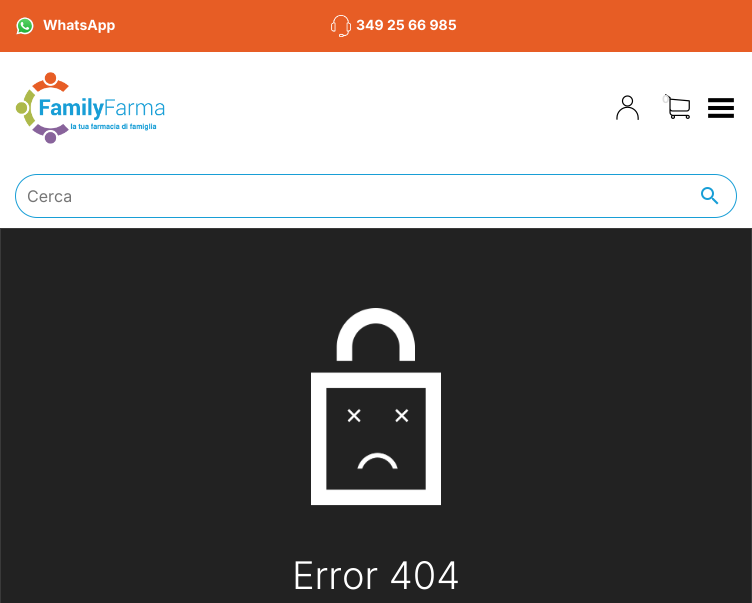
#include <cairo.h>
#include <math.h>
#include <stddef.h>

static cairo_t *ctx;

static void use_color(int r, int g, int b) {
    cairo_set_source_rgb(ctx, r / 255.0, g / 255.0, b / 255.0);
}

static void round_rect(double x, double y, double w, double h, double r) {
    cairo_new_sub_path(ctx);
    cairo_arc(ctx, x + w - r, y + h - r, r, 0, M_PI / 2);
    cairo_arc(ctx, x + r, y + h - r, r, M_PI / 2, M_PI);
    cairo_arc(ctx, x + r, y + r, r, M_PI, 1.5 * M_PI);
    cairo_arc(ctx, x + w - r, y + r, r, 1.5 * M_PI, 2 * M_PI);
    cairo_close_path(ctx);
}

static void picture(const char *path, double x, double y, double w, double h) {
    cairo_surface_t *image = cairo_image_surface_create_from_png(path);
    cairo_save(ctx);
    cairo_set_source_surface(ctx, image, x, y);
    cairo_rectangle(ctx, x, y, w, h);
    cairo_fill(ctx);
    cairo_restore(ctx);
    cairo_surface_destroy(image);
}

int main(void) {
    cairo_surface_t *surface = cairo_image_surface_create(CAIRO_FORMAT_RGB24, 752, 603);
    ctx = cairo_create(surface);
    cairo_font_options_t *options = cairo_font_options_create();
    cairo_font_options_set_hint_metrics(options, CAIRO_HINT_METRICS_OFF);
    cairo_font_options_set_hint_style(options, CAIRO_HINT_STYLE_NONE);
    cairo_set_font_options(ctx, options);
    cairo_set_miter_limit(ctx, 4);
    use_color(255, 255, 255);
    cairo_paint(ctx);
    use_color(231, 93, 37);
    cairo_rectangle(ctx, 0, 0, 752, 52);
    cairo_fill(ctx);
    picture("img1.png", 16, 17, 18, 18);
    cairo_select_font_face(ctx, "Inter", CAIRO_FONT_SLANT_NORMAL, CAIRO_FONT_WEIGHT_BOLD);
    cairo_set_font_size(ctx, 14);
    use_color(255, 255, 255);
    cairo_move_to(ctx, 43, 30);
    cairo_show_text(ctx, "WhatsApp");
    picture("img2.png", 331, 15, 20, 22);
    cairo_move_to(ctx, 356, 30);
    cairo_show_text(ctx, "349 25 66 985");
    picture("img3.png", 15, 72, 150, 72);
    picture("img4.png", 616, 95, 23, 25);
    picture("img5.png", 665, 94, 25, 25);
    cairo_set_font_size(ctx, 11);
    use_color(221, 221, 221);
    cairo_move_to(ctx, 662, 103);
    cairo_show_text(ctx, "0");
    picture("img6.png", 708, 98, 26, 20);
    round_rect(15.5, 174.5, 721, 43, 21.5);
    use_color(24, 158, 214);
    cairo_set_line_width(ctx, 1);
    cairo_stroke(ctx);
    cairo_select_font_face(ctx, "Inter", CAIRO_FONT_SLANT_NORMAL, CAIRO_FONT_WEIGHT_NORMAL);
    cairo_set_font_size(ctx, 16);
    use_color(117, 117, 117);
    cairo_move_to(ctx, 27, 202);
    cairo_show_text(ctx, "Cerca");
    picture("img7.png", 701, 187, 18, 18);
    use_color(34, 34, 34);
    cairo_rectangle(ctx, 0.5, 228.5, 751, 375);
    cairo_fill_preserve(ctx);
    use_color(58, 58, 58);
    cairo_stroke(ctx);
    picture("img8.png", 311, 308, 130, 198);
    cairo_select_font_face(ctx, "Inter Light", CAIRO_FONT_SLANT_NORMAL, CAIRO_FONT_WEIGHT_NORMAL);
    cairo_set_font_size(ctx, 38);
    use_color(255, 255, 255);
    cairo_move_to(ctx, 292, 589);
    cairo_show_text(ctx, "Error 404");
    cairo_surface_write_to_png(surface, "result.png");
    cairo_font_options_destroy(options);
    cairo_destroy(ctx);
    cairo_surface_destroy(surface);
    return 0;
}
